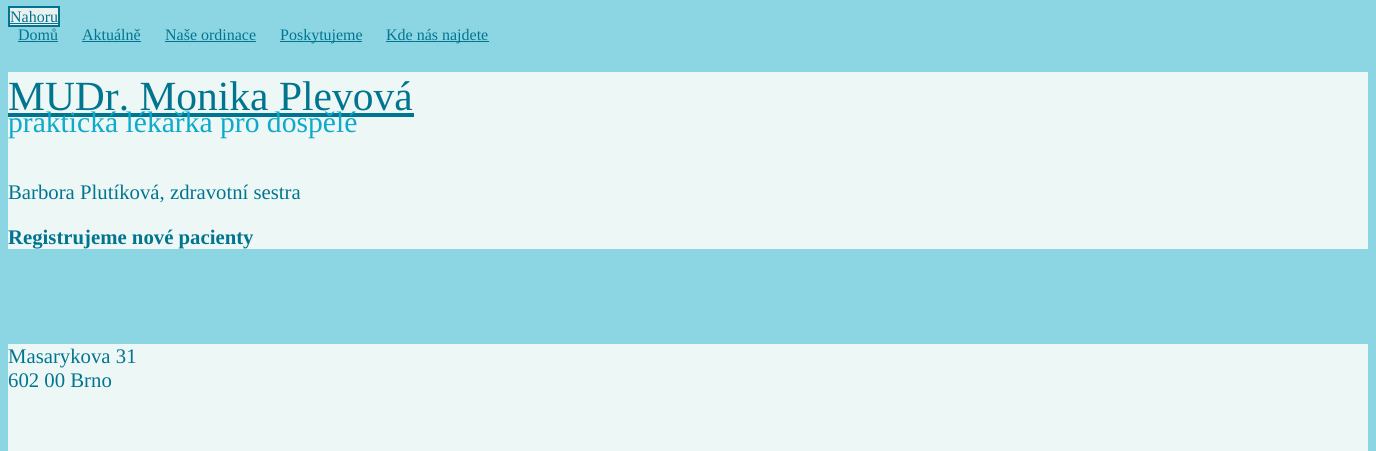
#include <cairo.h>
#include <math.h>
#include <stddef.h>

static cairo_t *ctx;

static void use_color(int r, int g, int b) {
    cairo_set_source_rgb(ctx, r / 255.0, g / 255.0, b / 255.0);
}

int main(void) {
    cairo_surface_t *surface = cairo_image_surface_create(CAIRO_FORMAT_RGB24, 1376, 451);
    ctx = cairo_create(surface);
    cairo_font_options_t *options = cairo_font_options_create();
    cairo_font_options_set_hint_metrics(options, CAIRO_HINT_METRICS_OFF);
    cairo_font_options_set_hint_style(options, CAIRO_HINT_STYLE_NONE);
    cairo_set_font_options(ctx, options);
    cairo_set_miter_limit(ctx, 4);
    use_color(140, 213, 227);
    cairo_paint(ctx);
    use_color(234, 240, 240);
    cairo_rectangle(ctx, 10, 8, 48, 17);
    cairo_fill(ctx);
    cairo_select_font_face(ctx, "Liberation Serif", CAIRO_FONT_SLANT_NORMAL, CAIRO_FONT_WEIGHT_NORMAL);
    cairo_set_font_size(ctx, 16);
    use_color(1, 117, 143);
    cairo_move_to(ctx, 10, 22);
    cairo_show_text(ctx, "Nahoru");
    cairo_rectangle(ctx, 8, 6, 2, 21);
    cairo_fill(ctx);
    cairo_rectangle(ctx, 10, 6, 50, 2);
    cairo_fill(ctx);
    cairo_rectangle(ctx, 58, 6, 2, 21);
    cairo_fill(ctx);
    cairo_rectangle(ctx, 10, 25, 50, 2);
    cairo_fill(ctx);
    cairo_rectangle(ctx, 10, 23, 48, 1);
    cairo_fill(ctx);
    cairo_move_to(ctx, 18, 40);
    cairo_show_text(ctx, "Domů");
    cairo_rectangle(ctx, 18, 41, 40, 1);
    cairo_fill(ctx);
    cairo_move_to(ctx, 82, 40);
    cairo_show_text(ctx, "Aktuálně");
    cairo_rectangle(ctx, 82, 41, 59, 1);
    cairo_fill(ctx);
    cairo_move_to(ctx, 165, 40);
    cairo_show_text(ctx, "Naše ordinace");
    cairo_rectangle(ctx, 165, 41, 91, 1);
    cairo_fill(ctx);
    cairo_rectangle(ctx, 280, 41, 82, 1);
    cairo_fill(ctx);
    cairo_move_to(ctx, 280, 40);
    cairo_show_text(ctx, "Poskytujeme");
    cairo_rectangle(ctx, 386, 41, 103, 1);
    cairo_fill(ctx);
    cairo_move_to(ctx, 386, 40);
    cairo_show_text(ctx, "Kde nás najdete");
    use_color(237, 247, 246);
    cairo_rectangle(ctx, 8, 72, 1360, 177);
    cairo_fill(ctx);
    cairo_set_font_size(ctx, 41.5);
    use_color(1, 117, 143);
    cairo_move_to(ctx, 8, 110);
    cairo_show_text(ctx, "MUDr. Monika Plevová");
    cairo_rectangle(ctx, 8, 113, 406, 4);
    cairo_fill(ctx);
    cairo_set_font_size(ctx, 29.6);
    use_color(12, 170, 203);
    cairo_move_to(ctx, 8, 132);
    cairo_show_text(ctx, "praktická lékařka pro dospělé");
    cairo_set_font_size(ctx, 20.75);
    use_color(1, 117, 143);
    cairo_move_to(ctx, 8, 199);
    cairo_show_text(ctx, "Barbora Plutíková, zdravotní sestra");
    cairo_select_font_face(ctx, "Liberation Serif", CAIRO_FONT_SLANT_NORMAL, CAIRO_FONT_WEIGHT_BOLD);
    cairo_move_to(ctx, 8, 244);
    cairo_show_text(ctx, "Registrujeme nové pacienty");
    use_color(237, 247, 246);
    cairo_rectangle(ctx, 8, 344, 1360, 107);
    cairo_fill(ctx);
    cairo_select_font_face(ctx, "Liberation Serif", CAIRO_FONT_SLANT_NORMAL, CAIRO_FONT_WEIGHT_NORMAL);
    use_color(1, 117, 143);
    cairo_move_to(ctx, 8, 363);
    cairo_show_text(ctx, "Masarykova 31");
    cairo_move_to(ctx, 8, 387);
    cairo_show_text(ctx, "602 00 Brno");
    cairo_surface_write_to_png(surface, "result.png");
    cairo_font_options_destroy(options);
    cairo_destroy(ctx);
    cairo_surface_destroy(surface);
    return 0;
}
